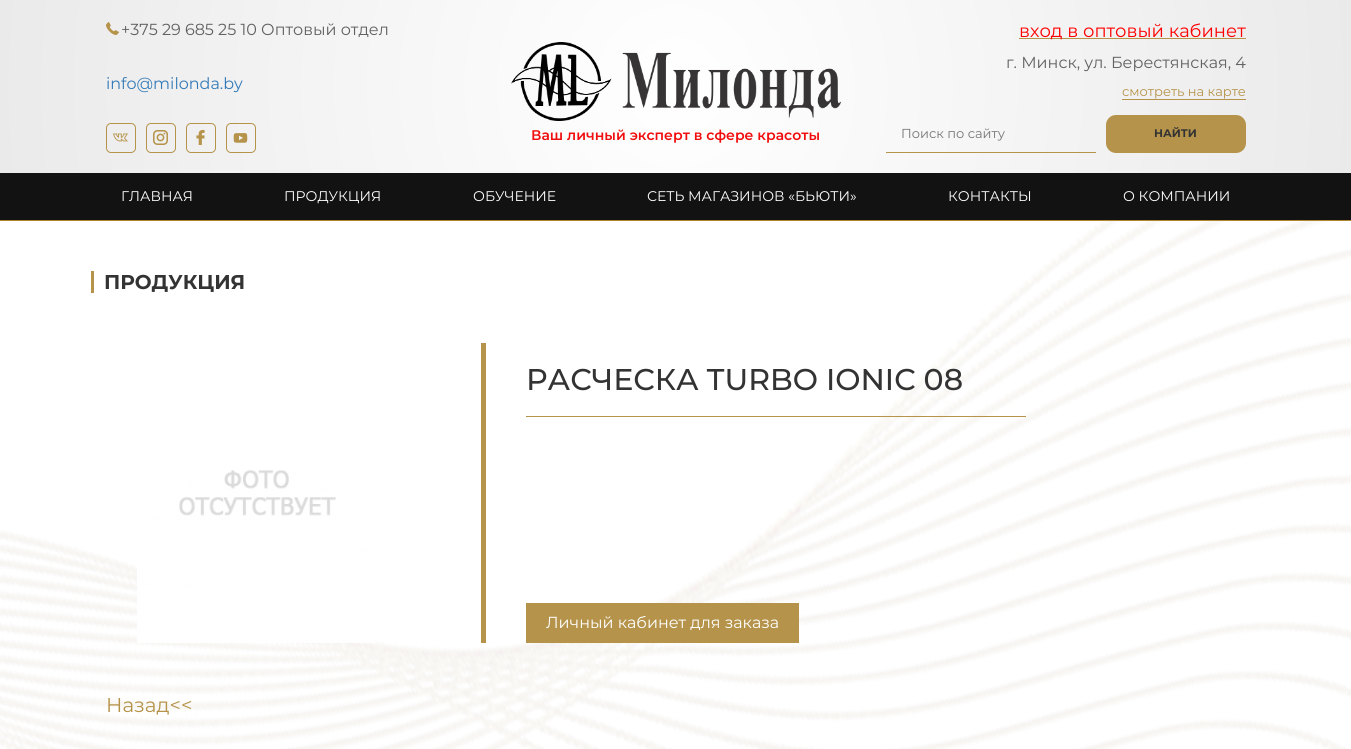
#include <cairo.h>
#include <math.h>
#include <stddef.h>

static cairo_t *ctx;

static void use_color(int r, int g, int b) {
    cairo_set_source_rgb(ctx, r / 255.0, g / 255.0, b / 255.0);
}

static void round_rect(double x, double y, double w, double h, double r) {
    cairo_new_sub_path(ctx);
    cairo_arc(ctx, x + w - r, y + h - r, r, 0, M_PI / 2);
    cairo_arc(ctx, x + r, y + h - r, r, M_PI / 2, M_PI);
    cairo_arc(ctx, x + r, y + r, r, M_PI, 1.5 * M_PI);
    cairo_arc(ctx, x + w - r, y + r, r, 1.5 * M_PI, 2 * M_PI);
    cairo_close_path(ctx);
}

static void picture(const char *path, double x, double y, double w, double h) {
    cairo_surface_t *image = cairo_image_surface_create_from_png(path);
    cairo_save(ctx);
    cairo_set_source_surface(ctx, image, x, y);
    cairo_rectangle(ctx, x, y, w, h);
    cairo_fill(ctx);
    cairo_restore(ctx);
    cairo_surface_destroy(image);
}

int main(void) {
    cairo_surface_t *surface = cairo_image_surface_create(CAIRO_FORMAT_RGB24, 1351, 749);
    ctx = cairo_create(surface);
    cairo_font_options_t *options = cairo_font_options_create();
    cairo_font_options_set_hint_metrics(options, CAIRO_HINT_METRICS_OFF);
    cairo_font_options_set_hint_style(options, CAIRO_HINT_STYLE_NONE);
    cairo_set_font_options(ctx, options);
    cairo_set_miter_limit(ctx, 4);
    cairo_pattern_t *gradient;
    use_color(255, 255, 255);
    cairo_paint(ctx);
    gradient = cairo_pattern_create_radial(676, 87, 0, 676, 87, 681);
    cairo_pattern_add_color_stop_rgba(gradient, 0, 1, 1, 1, 1);
    cairo_pattern_add_color_stop_rgba(gradient, 1, 0.918, 0.918, 0.918, 1);
    cairo_set_source(ctx, gradient);
    cairo_pattern_destroy(gradient);
    cairo_rectangle(ctx, 0, 0, 1351, 173);
    cairo_fill(ctx);
    picture("img1.png", 106, 22, 13, 13);
    cairo_select_font_face(ctx, "Montserrat", CAIRO_FONT_SLANT_NORMAL, CAIRO_FONT_WEIGHT_NORMAL);
    cairo_set_font_size(ctx, 16);
    use_color(97, 97, 97);
    cairo_move_to(ctx, 121, 35);
    cairo_show_text(ctx, "+375 29 685 25 10 Оптовый отдел");
    use_color(51, 122, 183);
    cairo_move_to(ctx, 106, 89);
    cairo_show_text(ctx, "info@milonda.by");
    round_rect(106.5, 123.5, 29, 29, 4.5);
    use_color(181, 147, 74);
    cairo_set_line_width(ctx, 1);
    cairo_stroke(ctx);
    picture("img2.png", 113, 133, 15, 9);
    round_rect(146.5, 123.5, 29, 29, 4.5);
    cairo_stroke(ctx);
    picture("img3.png", 153, 130, 15, 15);
    round_rect(186.5, 123.5, 29, 29, 4.5);
    cairo_stroke(ctx);
    picture("img4.png", 196, 130, 9, 15);
    round_rect(226.5, 123.5, 29, 29, 4.5);
    cairo_stroke(ctx);
    picture("img5.png", 233, 133, 15, 10);
    picture("img6.png", 511, 42, 330, 79);
    cairo_select_font_face(ctx, "Montserrat SemiBold", CAIRO_FONT_SLANT_NORMAL, CAIRO_FONT_WEIGHT_NORMAL);
    cairo_set_font_size(ctx, 14);
    use_color(241, 13, 13);
    cairo_move_to(ctx, 531, 140);
    cairo_show_text(ctx, "Ваш личный эксперт в сфере красоты");
    use_color(181, 147, 74);
    cairo_rectangle(ctx, 1019, 38, 227, 1);
    cairo_fill(ctx);
    cairo_select_font_face(ctx, "Montserrat", CAIRO_FONT_SLANT_NORMAL, CAIRO_FONT_WEIGHT_NORMAL);
    cairo_set_font_size(ctx, 18);
    use_color(255, 0, 0);
    cairo_move_to(ctx, 1019, 37);
    cairo_show_text(ctx, "вход в оптовый кабинет");
    cairo_set_font_size(ctx, 16);
    use_color(97, 97, 97);
    cairo_move_to(ctx, 1006, 68);
    cairo_show_text(ctx, "г. Минск, ул. Берестянская, 4");
    use_color(181, 147, 74);
    cairo_rectangle(ctx, 1122, 99, 124, 1);
    cairo_fill(ctx);
    cairo_set_font_size(ctx, 13);
    cairo_move_to(ctx, 1122, 96);
    cairo_show_text(ctx, "смотреть на карте");
    cairo_rectangle(ctx, 886, 152, 210, 1);
    cairo_fill(ctx);
    use_color(117, 117, 117);
    cairo_move_to(ctx, 901, 138);
    cairo_show_text(ctx, "Поиск по сайту");
    use_color(181, 147, 74);
    round_rect(1107, 116, 138, 36, 9);
    cairo_fill_preserve(ctx);
    cairo_set_line_width(ctx, 2);
    cairo_stroke(ctx);
    cairo_select_font_face(ctx, "Montserrat", CAIRO_FONT_SLANT_NORMAL, CAIRO_FONT_WEIGHT_BOLD);
    cairo_set_font_size(ctx, 11);
    use_color(51, 51, 51);
    cairo_move_to(ctx, 1154, 137);
    cairo_show_text(ctx, "НАЙТИ");
    use_color(18, 18, 18);
    cairo_rectangle(ctx, 0, 173, 1351, 47);
    cairo_fill(ctx);
    use_color(176, 135, 46);
    cairo_rectangle(ctx, 0, 220, 1351, 1);
    cairo_fill(ctx);
    cairo_select_font_face(ctx, "Montserrat", CAIRO_FONT_SLANT_NORMAL, CAIRO_FONT_WEIGHT_NORMAL);
    cairo_set_font_size(ctx, 14);
    use_color(255, 255, 255);
    cairo_move_to(ctx, 121, 201);
    cairo_show_text(ctx, "ГЛАВНАЯ");
    cairo_move_to(ctx, 284, 201);
    cairo_show_text(ctx, "ПРОДУКЦИЯ");
    cairo_move_to(ctx, 473, 201);
    cairo_show_text(ctx, "ОБУЧЕНИЕ");
    cairo_move_to(ctx, 647, 201);
    cairo_show_text(ctx, "СЕТЬ МАГАЗИНОВ «БЬЮТИ»");
    cairo_move_to(ctx, 948, 201);
    cairo_show_text(ctx, "КОНТАКТЫ");
    cairo_move_to(ctx, 1123, 201);
    cairo_show_text(ctx, "О КОМПАНИИ");
    picture("img7.png", 0, 221, 1351, 528);
    use_color(181, 147, 74);
    cairo_rectangle(ctx, 91, 271, 3, 22);
    cairo_fill(ctx);
    cairo_select_font_face(ctx, "Montserrat", CAIRO_FONT_SLANT_NORMAL, CAIRO_FONT_WEIGHT_BOLD);
    cairo_set_font_size(ctx, 20);
    use_color(51, 51, 51);
    cairo_move_to(ctx, 104, 289);
    cairo_show_text(ctx, "ПРОДУКЦИЯ");
    picture("img8.png", 137, 470, 238, 173);
    use_color(181, 147, 74);
    cairo_rectangle(ctx, 481, 343, 5, 300);
    cairo_fill(ctx);
    cairo_rectangle(ctx, 526, 416, 500, 1);
    cairo_fill(ctx);
    cairo_select_font_face(ctx, "Montserrat Medium", CAIRO_FONT_SLANT_NORMAL, CAIRO_FONT_WEIGHT_NORMAL);
    cairo_set_font_size(ctx, 30);
    use_color(51, 51, 51);
    cairo_move_to(ctx, 526, 390);
    cairo_show_text(ctx, "РАСЧЕСКА TURBO IONIC 08");
    use_color(181, 147, 74);
    cairo_rectangle(ctx, 526, 603, 273, 40);
    cairo_fill(ctx);
    cairo_select_font_face(ctx, "Montserrat", CAIRO_FONT_SLANT_NORMAL, CAIRO_FONT_WEIGHT_NORMAL);
    cairo_set_font_size(ctx, 16);
    use_color(255, 255, 255);
    cairo_move_to(ctx, 546, 628);
    cairo_show_text(ctx, "Личный кабинет для заказа");
    cairo_set_font_size(ctx, 20);
    use_color(181, 147, 74);
    cairo_move_to(ctx, 106, 712);
    cairo_show_text(ctx, "Назад<<");
    cairo_surface_write_to_png(surface, "result.png");
    cairo_font_options_destroy(options);
    cairo_destroy(ctx);
    cairo_surface_destroy(surface);
    return 0;
}
